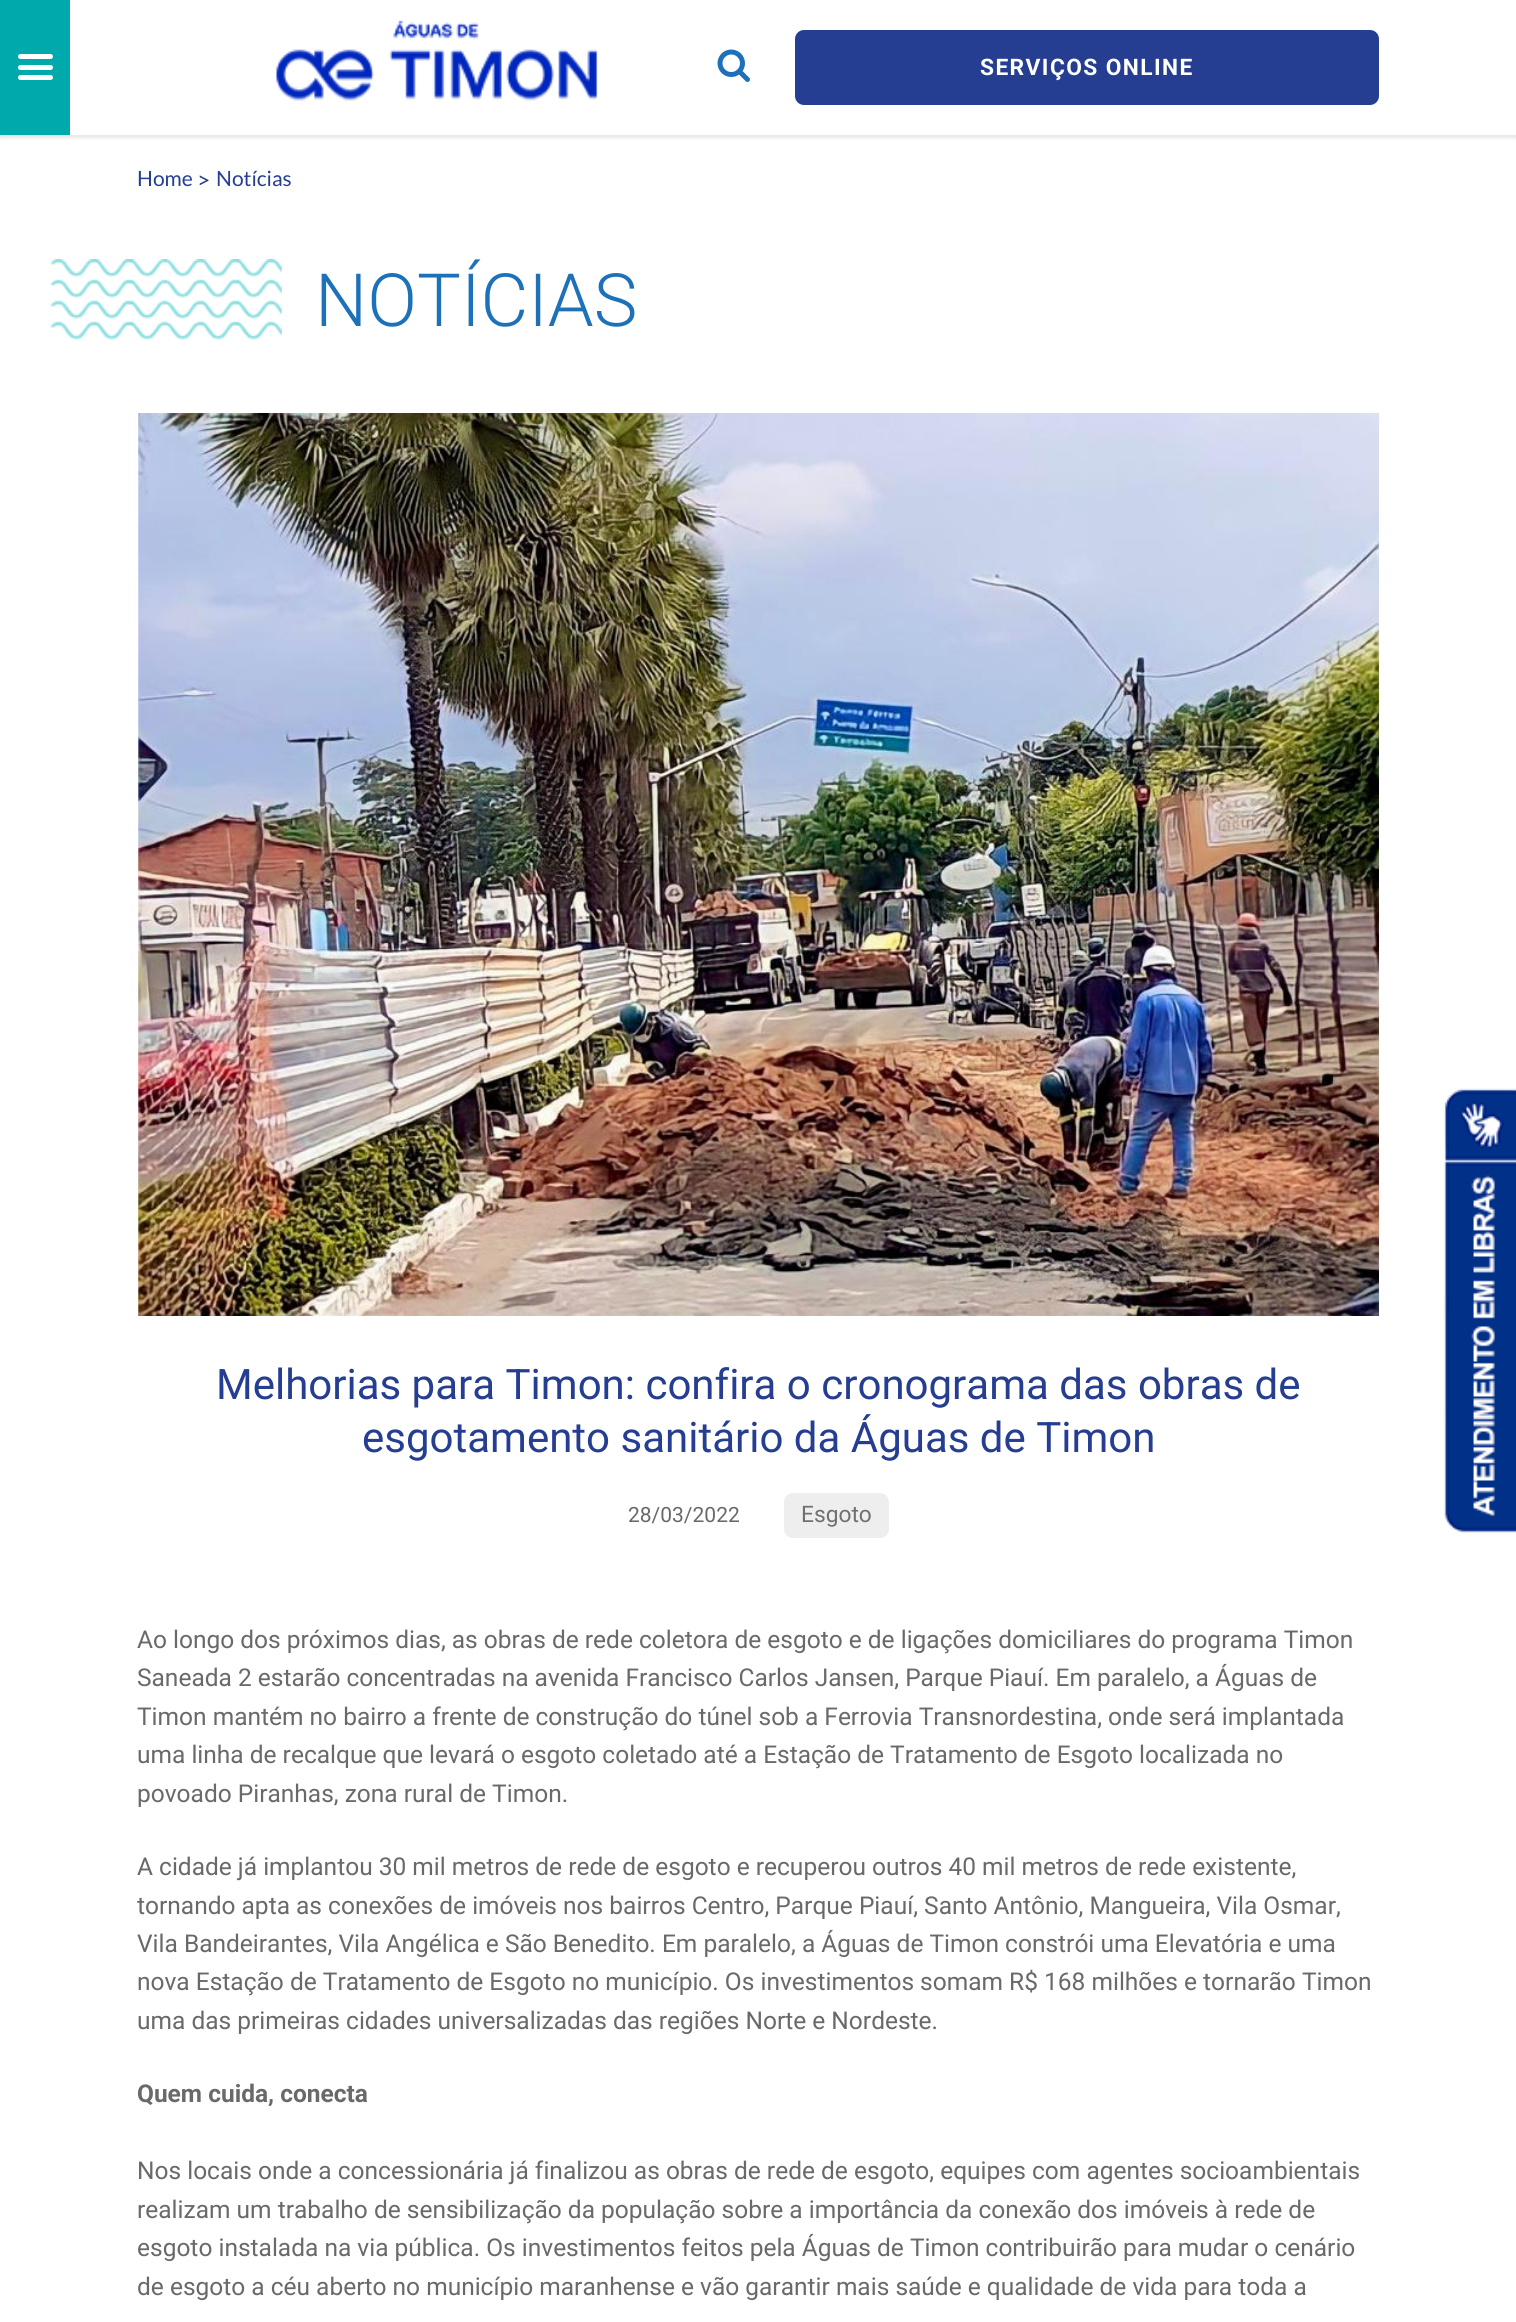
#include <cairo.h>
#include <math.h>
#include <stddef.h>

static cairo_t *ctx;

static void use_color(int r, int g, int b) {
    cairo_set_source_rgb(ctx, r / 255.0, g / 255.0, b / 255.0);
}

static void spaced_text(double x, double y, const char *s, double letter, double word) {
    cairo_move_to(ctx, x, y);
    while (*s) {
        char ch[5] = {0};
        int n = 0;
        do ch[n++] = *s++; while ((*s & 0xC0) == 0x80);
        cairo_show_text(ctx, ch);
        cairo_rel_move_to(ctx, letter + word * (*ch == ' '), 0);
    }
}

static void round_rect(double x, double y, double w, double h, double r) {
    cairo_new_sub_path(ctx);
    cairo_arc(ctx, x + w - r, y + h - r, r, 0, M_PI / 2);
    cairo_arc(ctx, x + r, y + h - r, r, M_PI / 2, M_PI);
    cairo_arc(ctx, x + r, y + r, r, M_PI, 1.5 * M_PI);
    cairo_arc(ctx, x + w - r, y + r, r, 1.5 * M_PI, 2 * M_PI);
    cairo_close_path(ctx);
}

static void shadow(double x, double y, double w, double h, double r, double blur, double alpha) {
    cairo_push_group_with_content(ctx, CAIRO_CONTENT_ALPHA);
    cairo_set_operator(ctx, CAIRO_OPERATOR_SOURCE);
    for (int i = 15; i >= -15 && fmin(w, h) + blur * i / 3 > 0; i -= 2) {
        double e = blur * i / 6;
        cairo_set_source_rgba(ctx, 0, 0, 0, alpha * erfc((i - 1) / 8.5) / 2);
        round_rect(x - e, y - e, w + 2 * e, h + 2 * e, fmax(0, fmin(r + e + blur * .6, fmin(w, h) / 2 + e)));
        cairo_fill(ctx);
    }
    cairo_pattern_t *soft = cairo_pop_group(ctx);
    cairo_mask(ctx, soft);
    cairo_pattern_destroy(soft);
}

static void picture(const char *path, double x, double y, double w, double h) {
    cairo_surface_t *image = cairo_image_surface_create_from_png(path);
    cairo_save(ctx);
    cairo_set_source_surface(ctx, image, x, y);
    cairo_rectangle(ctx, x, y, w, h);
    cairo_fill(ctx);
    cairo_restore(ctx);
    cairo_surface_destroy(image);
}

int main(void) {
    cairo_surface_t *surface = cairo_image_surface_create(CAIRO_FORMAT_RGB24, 1516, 2322);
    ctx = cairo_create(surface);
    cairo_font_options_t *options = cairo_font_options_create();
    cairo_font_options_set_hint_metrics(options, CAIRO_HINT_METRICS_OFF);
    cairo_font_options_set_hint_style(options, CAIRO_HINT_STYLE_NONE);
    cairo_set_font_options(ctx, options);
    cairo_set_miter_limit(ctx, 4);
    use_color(255, 255, 255);
    cairo_paint(ctx);
    use_color(0, 0, 0);
    shadow(0, 4, 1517, 134, 0, 2, 0.1);
    use_color(255, 255, 255);
    cairo_rectangle(ctx, 70, 1, 1446, 134);
    cairo_fill(ctx);
    use_color(0, 169, 172);
    cairo_rectangle(ctx, 0, 0, 70, 135);
    cairo_fill(ctx);
    use_color(255, 255, 255);
    round_rect(18, 54, 35, 5, 2.5);
    cairo_fill(ctx);
    round_rect(18, 65, 35, 5, 2.5);
    cairo_fill(ctx);
    round_rect(18, 75, 35, 5, 2.5);
    cairo_fill(ctx);
    picture("img1.png", 275, 20, 323, 81);
    picture("img2.png", 717, 49, 33, 33);
    use_color(37, 62, 146);
    round_rect(795, 30, 584, 75, 9);
    cairo_fill(ctx);
    cairo_select_font_face(ctx, "Roboto", CAIRO_FONT_SLANT_NORMAL, CAIRO_FONT_WEIGHT_BOLD);
    cairo_set_font_size(ctx, 22.75);
    use_color(255, 255, 255);
    spaced_text(980, 75, "SERVIÇOS ONLINE", 1.4, 0);
    cairo_select_font_face(ctx, "Lato", CAIRO_FONT_SLANT_NORMAL, CAIRO_FONT_WEIGHT_NORMAL);
    cairo_set_font_size(ctx, 21);
    use_color(37, 62, 146);
    cairo_move_to(ctx, 137, 186);
    cairo_show_text(ctx, "Home");
    cairo_set_font_size(ctx, 22.75);
    cairo_move_to(ctx, 197, 188);
    cairo_show_text(ctx, ">");
    cairo_set_font_size(ctx, 21);
    cairo_move_to(ctx, 216, 186);
    cairo_show_text(ctx, "Notícias");
    picture("img3.png", 50, 259, 232, 81);
    cairo_select_font_face(ctx, "Roboto Light", CAIRO_FONT_SLANT_NORMAL, CAIRO_FONT_WEIGHT_NORMAL);
    cairo_set_font_size(ctx, 73.5);
    use_color(29, 113, 185);
    cairo_move_to(ctx, 315, 326);
    cairo_show_text(ctx, "NOTÍCIAS");
    picture("img4.png", 138, 413, 1241, 903);
    cairo_select_font_face(ctx, "Roboto", CAIRO_FONT_SLANT_NORMAL, CAIRO_FONT_WEIGHT_NORMAL);
    cairo_set_font_size(ctx, 42);
    use_color(37, 62, 146);
    cairo_move_to(ctx, 216, 1399);
    cairo_show_text(ctx, "Melhorias para Timon: confira o cronograma das obras de");
    cairo_move_to(ctx, 362, 1452);
    cairo_show_text(ctx, "esgotamento sanitário da Águas de Timon");
    cairo_set_font_size(ctx, 21);
    use_color(105, 105, 105);
    cairo_move_to(ctx, 628, 1522);
    cairo_show_text(ctx, "28/03/2022");
    use_color(238, 238, 238);
    round_rect(784, 1493, 105, 45, 9);
    cairo_fill(ctx);
    cairo_set_font_size(ctx, 22.75);
    use_color(112, 112, 112);
    cairo_move_to(ctx, 801, 1522);
    cairo_show_text(ctx, "Esgoto");
    cairo_set_font_size(ctx, 24.5);
    use_color(105, 105, 105);
    cairo_move_to(ctx, 137, 1648);
    cairo_show_text(ctx, "Ao longo dos próximos dias, as obras de rede coletora de esgoto e de ligações domiciliares do programa Timon");
    cairo_move_to(ctx, 137, 1686);
    cairo_show_text(ctx, "Saneada 2 estarão concentradas na avenida Francisco Carlos Jansen, Parque Piauí. Em paralelo, a Águas de");
    cairo_move_to(ctx, 137, 1725);
    cairo_show_text(ctx, "Timon mantém no bairro a frente de construção do túnel sob a Ferrovia Transnordestina, onde será implantada");
    cairo_move_to(ctx, 137, 1763);
    cairo_show_text(ctx, "uma linha de recalque que levará o esgoto coletado até a Estação de Tratamento de Esgoto localizada no");
    cairo_move_to(ctx, 137, 1802);
    cairo_show_text(ctx, "povoado Piranhas, zona rural de Timon.");
    cairo_move_to(ctx, 137, 1875);
    cairo_show_text(ctx, "A cidade já implantou 30 mil metros de rede de esgoto e recuperou outros 40 mil metros de rede existente,");
    cairo_move_to(ctx, 137, 1914);
    cairo_show_text(ctx, "tornando apta as conexões de imóveis nos bairros Centro, Parque Piauí, Santo Antônio, Mangueira, Vila Osmar,");
    cairo_move_to(ctx, 137, 1952);
    cairo_show_text(ctx, "Vila Bandeirantes, Vila Angélica e São Benedito. Em paralelo, a Águas de Timon constrói uma Elevatória e uma");
    cairo_move_to(ctx, 137, 1990);
    cairo_show_text(ctx, "nova Estação de Tratamento de Esgoto no município. Os investimentos somam R$ 168 milhões e tornarão Timon");
    cairo_move_to(ctx, 137, 2029);
    cairo_show_text(ctx, "uma das primeiras cidades universalizadas das regiões Norte e Nordeste.");
    cairo_select_font_face(ctx, "Roboto", CAIRO_FONT_SLANT_NORMAL, CAIRO_FONT_WEIGHT_BOLD);
    cairo_move_to(ctx, 137, 2102);
    cairo_show_text(ctx, "Quem cuida, conecta");
    cairo_select_font_face(ctx, "Roboto", CAIRO_FONT_SLANT_NORMAL, CAIRO_FONT_WEIGHT_NORMAL);
    cairo_move_to(ctx, 137, 2179);
    cairo_show_text(ctx, "Nos locais onde a concessionária já finalizou as obras de rede de esgoto, equipes com agentes socioambientais");
    cairo_move_to(ctx, 137, 2218);
    cairo_show_text(ctx, "realizam um trabalho de sensibilização da população sobre a importância da conexão dos imóveis à rede de");
    cairo_move_to(ctx, 137, 2256);
    cairo_show_text(ctx, "esgoto instalada na via pública. Os investimentos feitos pela Águas de Timon contribuirão para mudar o cenário");
    cairo_move_to(ctx, 137, 2295);
    cairo_show_text(ctx, "de esgoto a céu aberto no município maranhense e vão garantir mais saúde e qualidade de vida para toda a");
    picture("img5.png", 1443, 1088, 73, 64);
    picture("img6.png", 1443, 1088, 73, 445);
    cairo_surface_write_to_png(surface, "result.png");
    cairo_font_options_destroy(options);
    cairo_destroy(ctx);
    cairo_surface_destroy(surface);
    return 0;
}
